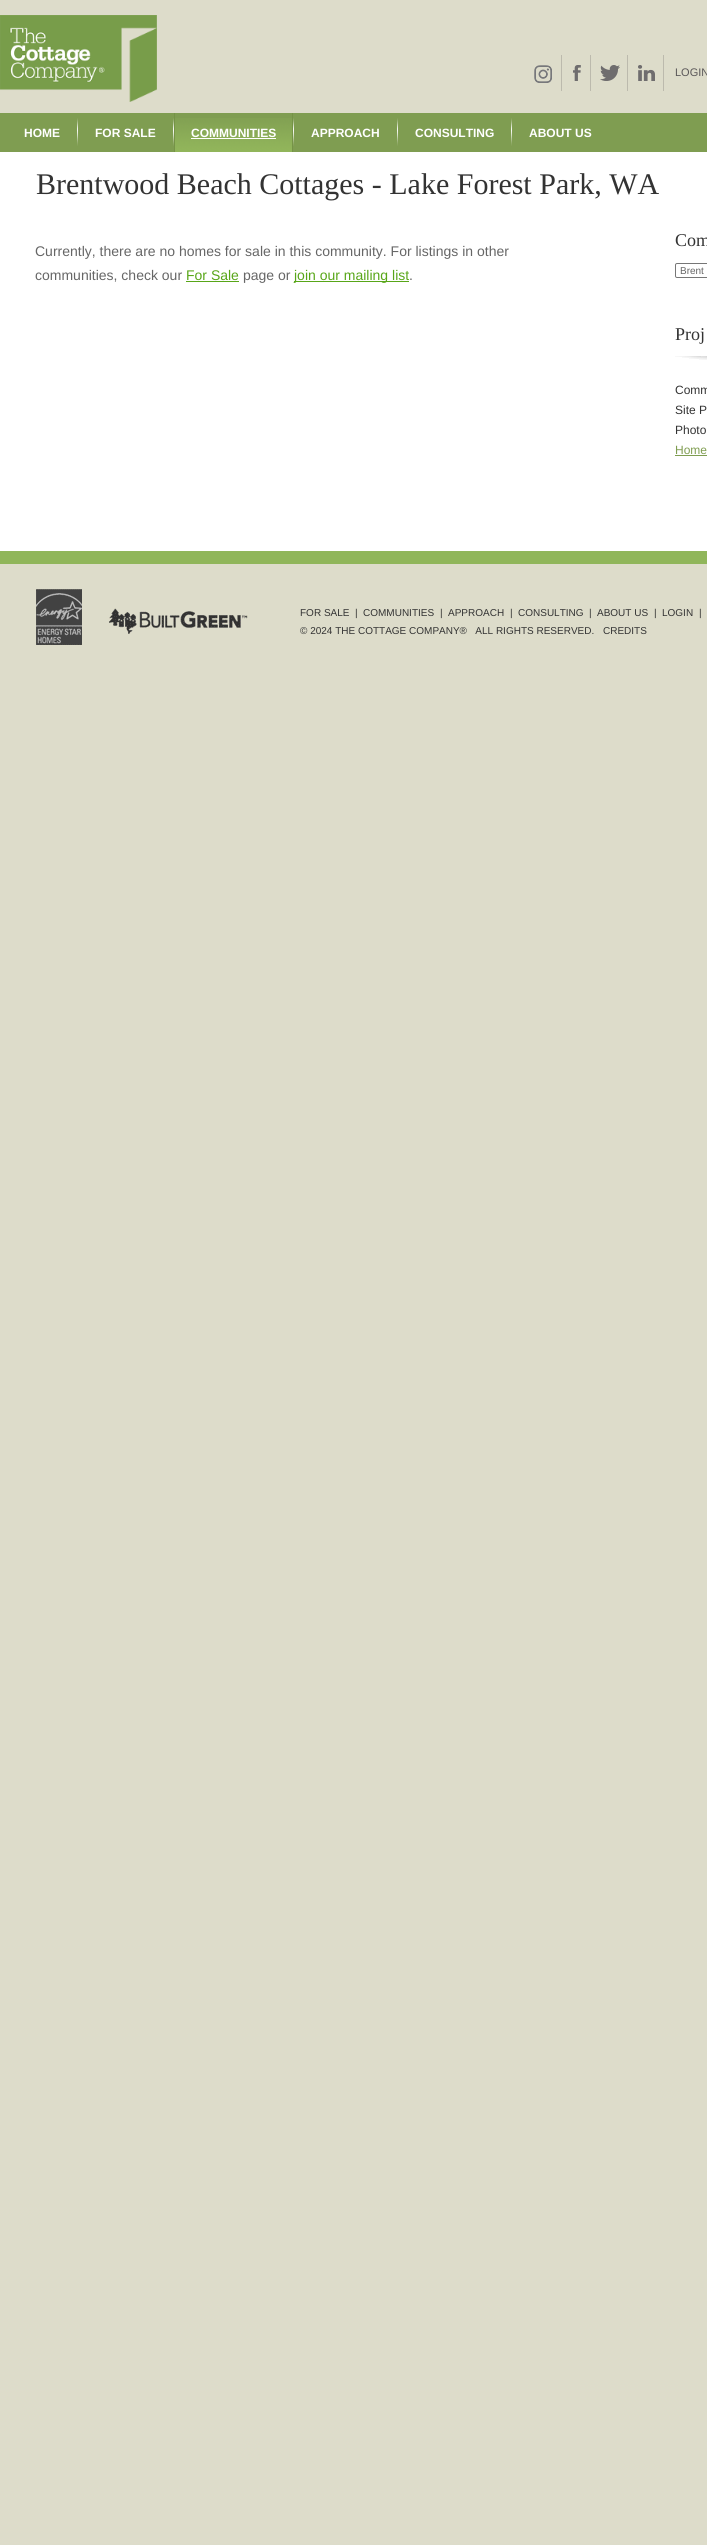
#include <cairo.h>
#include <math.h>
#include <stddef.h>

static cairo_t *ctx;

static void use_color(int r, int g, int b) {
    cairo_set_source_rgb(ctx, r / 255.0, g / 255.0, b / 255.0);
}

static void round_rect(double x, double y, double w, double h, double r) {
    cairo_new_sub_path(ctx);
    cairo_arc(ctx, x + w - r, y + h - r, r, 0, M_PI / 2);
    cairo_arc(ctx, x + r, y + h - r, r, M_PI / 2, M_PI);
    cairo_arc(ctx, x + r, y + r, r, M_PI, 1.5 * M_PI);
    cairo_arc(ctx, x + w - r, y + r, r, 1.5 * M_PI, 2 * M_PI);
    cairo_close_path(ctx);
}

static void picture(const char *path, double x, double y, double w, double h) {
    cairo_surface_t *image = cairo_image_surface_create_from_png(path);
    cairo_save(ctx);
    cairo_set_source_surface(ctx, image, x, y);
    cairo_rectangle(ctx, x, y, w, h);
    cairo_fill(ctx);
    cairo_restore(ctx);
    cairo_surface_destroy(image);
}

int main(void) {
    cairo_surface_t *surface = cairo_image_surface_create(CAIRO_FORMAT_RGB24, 707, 2545);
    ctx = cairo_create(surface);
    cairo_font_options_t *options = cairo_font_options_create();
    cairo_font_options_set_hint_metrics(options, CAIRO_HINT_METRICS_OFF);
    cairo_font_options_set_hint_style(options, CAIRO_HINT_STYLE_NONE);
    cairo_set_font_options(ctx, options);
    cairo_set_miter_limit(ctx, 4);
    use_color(221, 220, 202);
    cairo_paint(ctx);
    picture("img1.png", 0, 15, 157, 87);
    picture("img2.png", 534, 65, 18, 18);
    use_color(188, 186, 173);
    cairo_rectangle(ctx, 561, 55, 1, 36);
    cairo_fill(ctx);
    picture("img3.png", 573, 65, 8, 16);
    cairo_rectangle(ctx, 590, 55, 1, 36);
    cairo_fill(ctx);
    picture("img4.png", 600, 65, 20, 16);
    cairo_rectangle(ctx, 627, 55, 1, 36);
    cairo_fill(ctx);
    picture("img5.png", 638, 65, 17, 16);
    cairo_rectangle(ctx, 663, 55, 1, 36);
    cairo_fill(ctx);
    cairo_select_font_face(ctx, "Liberation Sans", CAIRO_FONT_SLANT_NORMAL, CAIRO_FONT_WEIGHT_NORMAL);
    cairo_set_font_size(ctx, 11);
    use_color(90, 87, 88);
    cairo_move_to(ctx, 675, 76);
    cairo_show_text(ctx, "LOGIN");
    use_color(127, 157, 81);
    cairo_rectangle(ctx, 0, 113, 707, 39);
    cairo_fill(ctx);
    cairo_select_font_face(ctx, "Liberation Sans", CAIRO_FONT_SLANT_NORMAL, CAIRO_FONT_WEIGHT_BOLD);
    cairo_set_font_size(ctx, 12);
    use_color(255, 255, 255);
    cairo_move_to(ctx, 24, 137);
    cairo_show_text(ctx, "HOME");
    picture("img6.png", 77, 118, 1, 28);
    cairo_move_to(ctx, 95, 137);
    cairo_show_text(ctx, "FOR SALE");
    picture("img6.png", 173, 118, 1, 28);
    picture("img7.png", 175, 118, 117, 34);
    use_color(117, 147, 71);
    cairo_rectangle(ctx, 292, 113, 1, 39);
    cairo_fill(ctx);
    cairo_rectangle(ctx, 174, 113, 1, 39);
    cairo_fill(ctx);
    use_color(255, 255, 255);
    cairo_move_to(ctx, 191, 137);
    cairo_show_text(ctx, "COMMUNITIES");
    cairo_rectangle(ctx, 191, 138, 85, 1);
    cairo_fill(ctx);
    picture("img6.png", 293, 118, 1, 28);
    cairo_move_to(ctx, 311, 137);
    cairo_show_text(ctx, "APPROACH");
    picture("img6.png", 397, 118, 1, 28);
    cairo_move_to(ctx, 415, 137);
    cairo_show_text(ctx, "CONSULTING");
    picture("img6.png", 511, 118, 1, 28);
    cairo_move_to(ctx, 529, 137);
    cairo_show_text(ctx, "ABOUT US");
    cairo_rectangle(ctx, 0, 152, 707, 399);
    cairo_fill(ctx);
    use_color(144, 182, 90);
    cairo_rectangle(ctx, 0, 551, 707, 13);
    cairo_fill(ctx);
    cairo_select_font_face(ctx, "Liberation Serif", CAIRO_FONT_SLANT_NORMAL, CAIRO_FONT_WEIGHT_NORMAL);
    cairo_set_font_size(ctx, 30);
    use_color(51, 51, 51);
    cairo_move_to(ctx, 36, 194);
    cairo_show_text(ctx, "Brentwood Beach Cottages - Lake Forest Park, WA");
    cairo_select_font_face(ctx, "Liberation Sans", CAIRO_FONT_SLANT_NORMAL, CAIRO_FONT_WEIGHT_NORMAL);
    cairo_set_font_size(ctx, 14);
    use_color(102, 102, 102);
    cairo_move_to(ctx, 35, 256);
    cairo_show_text(ctx, "Currently, there are no homes for sale in this community. For listings in other");
    cairo_move_to(ctx, 35, 280);
    cairo_show_text(ctx, "communities, check our");
    use_color(88, 166, 24);
    cairo_move_to(ctx, 186, 280);
    cairo_show_text(ctx, "For Sale");
    cairo_rectangle(ctx, 186, 281, 53, 1);
    cairo_fill(ctx);
    use_color(102, 102, 102);
    cairo_move_to(ctx, 243, 280);
    cairo_show_text(ctx, "page or");
    use_color(88, 166, 24);
    cairo_rectangle(ctx, 294, 281, 115, 1);
    cairo_fill(ctx);
    cairo_move_to(ctx, 294, 280);
    cairo_show_text(ctx, "join our mailing list");
    use_color(102, 102, 102);
    cairo_move_to(ctx, 409, 280);
    cairo_show_text(ctx, ".");
    cairo_select_font_face(ctx, "Liberation Serif", CAIRO_FONT_SLANT_NORMAL, CAIRO_FONT_WEIGHT_NORMAL);
    cairo_set_font_size(ctx, 18);
    use_color(51, 51, 51);
    cairo_move_to(ctx, 675, 246);
    cairo_show_text(ctx, "Com");
    round_rect(675.5, 263.5, 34, 14, 1.5);
    use_color(118, 118, 118);
    cairo_set_line_width(ctx, 1);
    cairo_stroke(ctx);
    cairo_select_font_face(ctx, "Liberation Sans", CAIRO_FONT_SLANT_NORMAL, CAIRO_FONT_WEIGHT_NORMAL);
    cairo_set_font_size(ctx, 10);
    use_color(102, 102, 102);
    cairo_move_to(ctx, 680, 274);
    cairo_show_text(ctx, "Brent");
    picture("img8.png", 675, 356, 32, 4);
    cairo_select_font_face(ctx, "Liberation Serif", CAIRO_FONT_SLANT_NORMAL, CAIRO_FONT_WEIGHT_NORMAL);
    cairo_set_font_size(ctx, 18);
    use_color(51, 51, 51);
    cairo_move_to(ctx, 675, 340);
    cairo_show_text(ctx, "Proj");
    cairo_select_font_face(ctx, "Liberation Sans", CAIRO_FONT_SLANT_NORMAL, CAIRO_FONT_WEIGHT_NORMAL);
    cairo_set_font_size(ctx, 12);
    cairo_move_to(ctx, 675, 394);
    cairo_show_text(ctx, "Comm");
    cairo_move_to(ctx, 675, 414);
    cairo_show_text(ctx, "Site P");
    cairo_move_to(ctx, 675, 434);
    cairo_show_text(ctx, "Photo");
    use_color(127, 157, 81);
    cairo_move_to(ctx, 675, 454);
    cairo_show_text(ctx, "Home");
    cairo_rectangle(ctx, 675, 455, 32, 1);
    cairo_fill(ctx);
    picture("img9.png", 36, 589, 212, 56);
    cairo_set_font_size(ctx, 10);
    use_color(51, 51, 51);
    cairo_move_to(ctx, 300, 616);
    cairo_show_text(ctx, "FOR SALE");
    cairo_move_to(ctx, 355, 616);
    cairo_show_text(ctx, "|");
    cairo_move_to(ctx, 363, 616);
    cairo_show_text(ctx, "COMMUNITIES");
    cairo_move_to(ctx, 440, 616);
    cairo_show_text(ctx, "|");
    cairo_move_to(ctx, 448, 616);
    cairo_show_text(ctx, "APPROACH");
    cairo_move_to(ctx, 510, 616);
    cairo_show_text(ctx, "|");
    cairo_move_to(ctx, 518, 616);
    cairo_show_text(ctx, "CONSULTING");
    cairo_move_to(ctx, 589, 616);
    cairo_show_text(ctx, "|");
    cairo_move_to(ctx, 597, 616);
    cairo_show_text(ctx, "ABOUT US");
    cairo_move_to(ctx, 654, 616);
    cairo_show_text(ctx, "|");
    cairo_move_to(ctx, 662, 616);
    cairo_show_text(ctx, "LOGIN");
    cairo_move_to(ctx, 699, 616);
    cairo_show_text(ctx, "|");
    cairo_move_to(ctx, 300, 634);
    cairo_show_text(ctx, "© 2024 THE COTTAGE COMPANY®   ALL RIGHTS RESERVED.");
    cairo_move_to(ctx, 603, 634);
    cairo_show_text(ctx, "CREDITS");
    cairo_surface_write_to_png(surface, "result.png");
    cairo_font_options_destroy(options);
    cairo_destroy(ctx);
    cairo_surface_destroy(surface);
    return 0;
}
